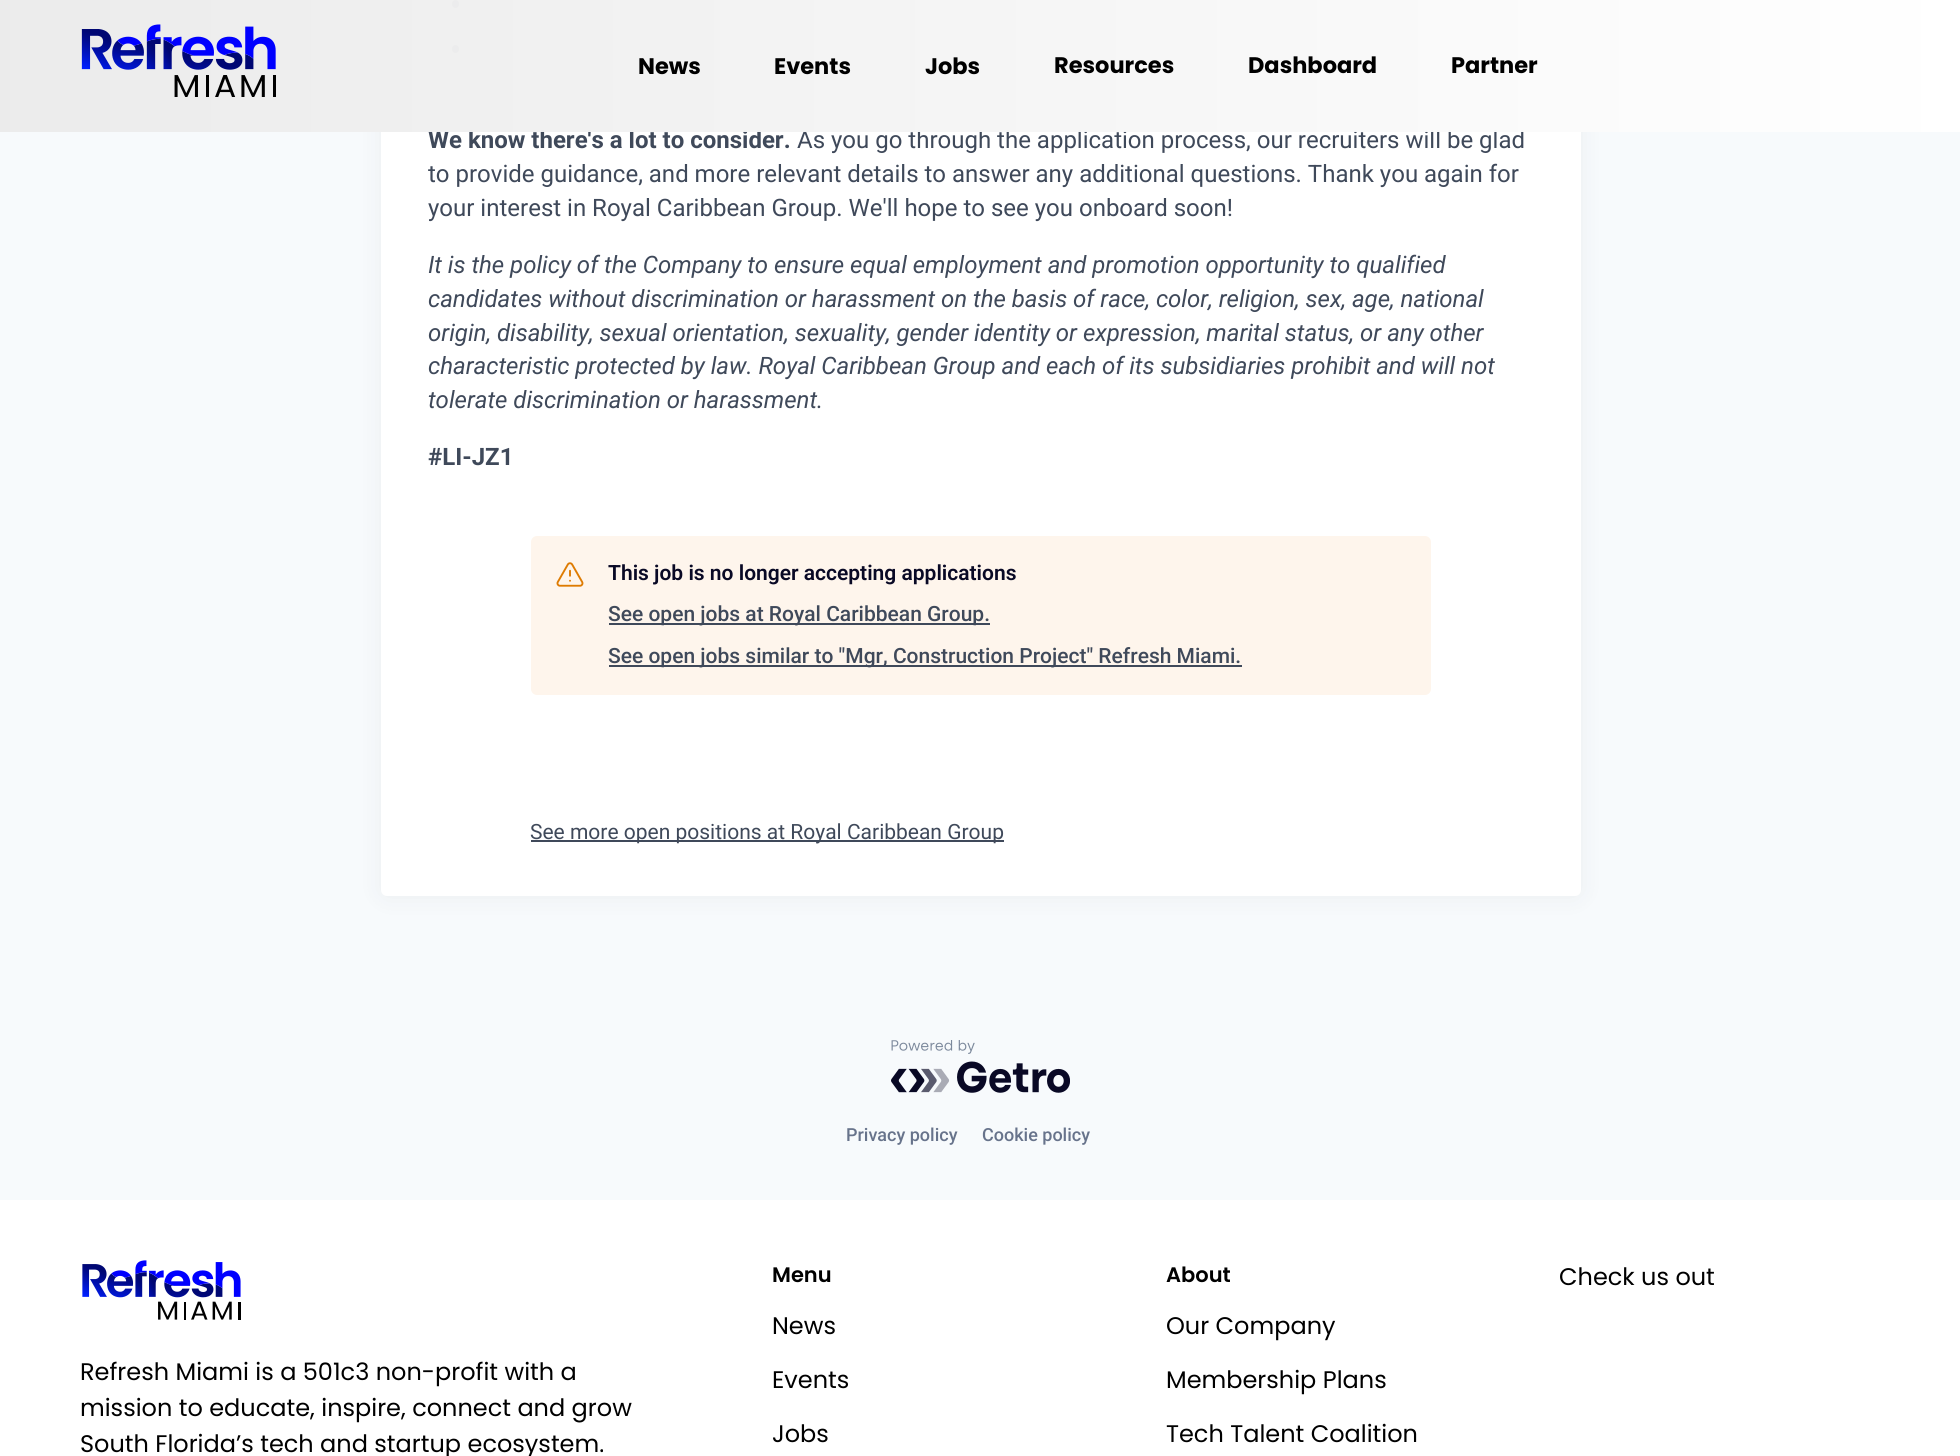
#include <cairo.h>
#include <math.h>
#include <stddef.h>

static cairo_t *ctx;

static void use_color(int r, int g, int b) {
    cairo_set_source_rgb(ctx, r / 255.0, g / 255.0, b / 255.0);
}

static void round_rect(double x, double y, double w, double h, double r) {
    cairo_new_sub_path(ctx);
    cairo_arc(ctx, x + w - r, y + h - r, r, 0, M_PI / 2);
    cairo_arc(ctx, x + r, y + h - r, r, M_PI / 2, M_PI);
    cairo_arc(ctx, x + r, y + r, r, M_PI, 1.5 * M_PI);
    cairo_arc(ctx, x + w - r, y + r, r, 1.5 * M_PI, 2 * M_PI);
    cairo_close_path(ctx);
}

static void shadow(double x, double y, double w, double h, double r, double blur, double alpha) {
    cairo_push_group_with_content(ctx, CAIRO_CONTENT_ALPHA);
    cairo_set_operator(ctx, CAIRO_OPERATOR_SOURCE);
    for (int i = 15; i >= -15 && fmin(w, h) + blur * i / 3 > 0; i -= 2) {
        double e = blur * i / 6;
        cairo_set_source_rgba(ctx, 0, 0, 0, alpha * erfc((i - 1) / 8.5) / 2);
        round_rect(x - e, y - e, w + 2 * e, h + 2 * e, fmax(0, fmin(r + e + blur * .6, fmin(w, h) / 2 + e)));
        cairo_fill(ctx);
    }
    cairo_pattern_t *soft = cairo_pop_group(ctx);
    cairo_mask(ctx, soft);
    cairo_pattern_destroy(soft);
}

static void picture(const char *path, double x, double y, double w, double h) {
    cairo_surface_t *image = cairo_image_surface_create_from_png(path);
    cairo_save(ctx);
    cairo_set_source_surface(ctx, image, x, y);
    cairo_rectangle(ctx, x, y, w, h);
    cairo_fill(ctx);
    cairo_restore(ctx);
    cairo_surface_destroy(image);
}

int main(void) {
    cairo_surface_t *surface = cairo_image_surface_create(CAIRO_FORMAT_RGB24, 1960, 1456);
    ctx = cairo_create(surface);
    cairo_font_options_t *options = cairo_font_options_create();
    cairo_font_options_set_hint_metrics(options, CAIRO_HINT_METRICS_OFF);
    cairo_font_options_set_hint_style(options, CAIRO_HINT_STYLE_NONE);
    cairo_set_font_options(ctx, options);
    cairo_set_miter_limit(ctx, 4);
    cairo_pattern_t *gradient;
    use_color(247, 250, 252);
    cairo_paint(ctx);
    use_color(27, 36, 50);
    shadow(381, -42, 1200, 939, 6, 12, 0.06);
    use_color(255, 255, 255);
    round_rect(381, -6, 1200, 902, 6);
    cairo_fill(ctx);
    use_color(63, 73, 90);
    round_rect(452, 0, 7, 8, 3.5);
    cairo_fill(ctx);
    round_rect(452, 45, 7, 8, 3.5);
    cairo_fill(ctx);
    cairo_select_font_face(ctx, "Roboto", CAIRO_FONT_SLANT_NORMAL, CAIRO_FONT_WEIGHT_BOLD);
    cairo_set_font_size(ctx, 24);
    cairo_move_to(ctx, 428, 148);
    cairo_show_text(ctx, "We know there's a lot to consider.");
    cairo_select_font_face(ctx, "Roboto", CAIRO_FONT_SLANT_NORMAL, CAIRO_FONT_WEIGHT_NORMAL);
    cairo_move_to(ctx, 797, 148);
    cairo_show_text(ctx, "As you go through the application process, our recruiters will be glad");
    gradient = cairo_pattern_create_linear(0, 66, 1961, 66);
    cairo_pattern_add_color_stop_rgba(gradient, 0, 0.922, 0.922, 0.922, 0.98);
    cairo_pattern_add_color_stop_rgba(gradient, 1, 1, 1, 1, 0.98);
    cairo_set_source(ctx, gradient);
    cairo_pattern_destroy(gradient);
    cairo_rectangle(ctx, 0, 0, 1960, 132);
    cairo_fill(ctx);
    picture("img1.png", 81, 24, 195, 73);
    cairo_select_font_face(ctx, "Poppins", CAIRO_FONT_SLANT_NORMAL, CAIRO_FONT_WEIGHT_BOLD);
    cairo_set_font_size(ctx, 22.5);
    use_color(0, 0, 0);
    cairo_move_to(ctx, 638, 74);
    cairo_show_text(ctx, "News");
    cairo_move_to(ctx, 774, 74);
    cairo_show_text(ctx, "Events");
    cairo_move_to(ctx, 925, 74);
    cairo_show_text(ctx, "Jobs");
    cairo_move_to(ctx, 1054, 73);
    cairo_show_text(ctx, "Resources");
    cairo_move_to(ctx, 1248, 73);
    cairo_show_text(ctx, "Dashboard");
    cairo_move_to(ctx, 1451, 73);
    cairo_show_text(ctx, "Partner");
    cairo_select_font_face(ctx, "Roboto", CAIRO_FONT_SLANT_NORMAL, CAIRO_FONT_WEIGHT_NORMAL);
    cairo_set_font_size(ctx, 24);
    use_color(63, 73, 90);
    cairo_move_to(ctx, 428, 182);
    cairo_show_text(ctx, "to provide guidance, and more relevant details to answer any additional questions. Thank you again for");
    cairo_move_to(ctx, 428, 216);
    cairo_show_text(ctx, "your interest in Royal Caribbean Group. We'll hope to see you onboard soon!");
    cairo_select_font_face(ctx, "Roboto", CAIRO_FONT_SLANT_ITALIC, CAIRO_FONT_WEIGHT_NORMAL);
    cairo_move_to(ctx, 428, 273);
    cairo_show_text(ctx, "It is the policy of the Company to ensure equal employment and promotion opportunity to qualified");
    cairo_move_to(ctx, 428, 307);
    cairo_show_text(ctx, "candidates without discrimination or harassment on the basis of race, color, religion, sex, age, national");
    cairo_move_to(ctx, 428, 341);
    cairo_show_text(ctx, "origin, disability, sexual orientation, sexuality, gender identity or expression, marital status, or any other");
    cairo_move_to(ctx, 428, 374);
    cairo_show_text(ctx, "characteristic protected by law. Royal Caribbean Group and each of its subsidiaries prohibit and will not");
    cairo_move_to(ctx, 428, 408);
    cairo_show_text(ctx, "tolerate discrimination or harassment.");
    cairo_select_font_face(ctx, "Roboto", CAIRO_FONT_SLANT_NORMAL, CAIRO_FONT_WEIGHT_BOLD);
    cairo_move_to(ctx, 428, 465);
    cairo_show_text(ctx, "#LI-JZ1");
    use_color(254, 245, 236);
    round_rect(531, 536, 900, 159, 6);
    cairo_fill(ctx);
    picture("img2.png", 556, 562, 28, 25);
    cairo_select_font_face(ctx, "Roboto SemiBold", CAIRO_FONT_SLANT_NORMAL, CAIRO_FONT_WEIGHT_NORMAL);
    cairo_set_font_size(ctx, 21);
    use_color(9, 9, 37);
    cairo_move_to(ctx, 608, 580);
    cairo_show_text(ctx, "This job is no longer accepting applications");
    use_color(63, 73, 90);
    cairo_rectangle(ctx, 609, 623, 381, 2);
    cairo_fill(ctx);
    cairo_select_font_face(ctx, "Roboto Medium", CAIRO_FONT_SLANT_NORMAL, CAIRO_FONT_WEIGHT_NORMAL);
    cairo_move_to(ctx, 608, 621);
    cairo_show_text(ctx, "See open jobs at Royal Caribbean Group.");
    cairo_rectangle(ctx, 609, 665, 477, 2);
    cairo_fill(ctx);
    cairo_move_to(ctx, 608, 663);
    cairo_show_text(ctx, "See open jobs similar to \"Mgr, Construction Project\" Refresh Miami.");
    cairo_rectangle(ctx, 1086, 665, 156, 2);
    cairo_fill(ctx);
    cairo_rectangle(ctx, 531, 840, 473, 2);
    cairo_fill(ctx);
    cairo_select_font_face(ctx, "Roboto", CAIRO_FONT_SLANT_NORMAL, CAIRO_FONT_WEIGHT_NORMAL);
    cairo_move_to(ctx, 530, 839);
    cairo_show_text(ctx, "See more open positions at Royal Caribbean Group");
    picture("img3.png", 891, 1040, 179, 53);
    cairo_select_font_face(ctx, "Roboto Medium", CAIRO_FONT_SLANT_NORMAL, CAIRO_FONT_WEIGHT_NORMAL);
    cairo_set_font_size(ctx, 18);
    use_color(103, 115, 139);
    cairo_move_to(ctx, 846, 1141);
    cairo_show_text(ctx, "Privacy policy");
    cairo_move_to(ctx, 982, 1141);
    cairo_show_text(ctx, "Cookie policy");
    use_color(255, 255, 255);
    cairo_rectangle(ctx, 0, 1200, 1960, 256);
    cairo_fill(ctx);
    cairo_select_font_face(ctx, "Poppins SemiBold", CAIRO_FONT_SLANT_NORMAL, CAIRO_FONT_WEIGHT_NORMAL);
    cairo_set_font_size(ctx, 21);
    use_color(0, 0, 0);
    cairo_move_to(ctx, 772, 1282);
    cairo_show_text(ctx, "Menu");
    cairo_select_font_face(ctx, "Poppins", CAIRO_FONT_SLANT_NORMAL, CAIRO_FONT_WEIGHT_NORMAL);
    cairo_set_font_size(ctx, 24);
    cairo_move_to(ctx, 772, 1334);
    cairo_show_text(ctx, "News");
    cairo_move_to(ctx, 772, 1388);
    cairo_show_text(ctx, "Events");
    cairo_move_to(ctx, 772, 1442);
    cairo_show_text(ctx, "Jobs");
    cairo_select_font_face(ctx, "Poppins SemiBold", CAIRO_FONT_SLANT_NORMAL, CAIRO_FONT_WEIGHT_NORMAL);
    cairo_set_font_size(ctx, 21);
    cairo_move_to(ctx, 1166, 1282);
    cairo_show_text(ctx, "About");
    cairo_select_font_face(ctx, "Poppins", CAIRO_FONT_SLANT_NORMAL, CAIRO_FONT_WEIGHT_NORMAL);
    cairo_set_font_size(ctx, 24);
    cairo_move_to(ctx, 1166, 1334);
    cairo_show_text(ctx, "Our Company");
    cairo_move_to(ctx, 1166, 1388);
    cairo_show_text(ctx, "Membership Plans");
    cairo_move_to(ctx, 1166, 1442);
    cairo_show_text(ctx, "Tech Talent Coalition");
    cairo_move_to(ctx, 1559, 1285);
    cairo_show_text(ctx, "Check us out");
    picture("img4.png", 82, 1260, 159, 60);
    cairo_move_to(ctx, 80, 1380);
    cairo_show_text(ctx, "Refresh Miami is a 501c3 non-profit with a");
    cairo_move_to(ctx, 80, 1416);
    cairo_show_text(ctx, "mission to educate, inspire, connect and grow");
    cairo_move_to(ctx, 80, 1452);
    cairo_show_text(ctx, "South Florida’s tech and startup ecosystem.");
    cairo_surface_write_to_png(surface, "result.png");
    cairo_font_options_destroy(options);
    cairo_destroy(ctx);
    cairo_surface_destroy(surface);
    return 0;
}
